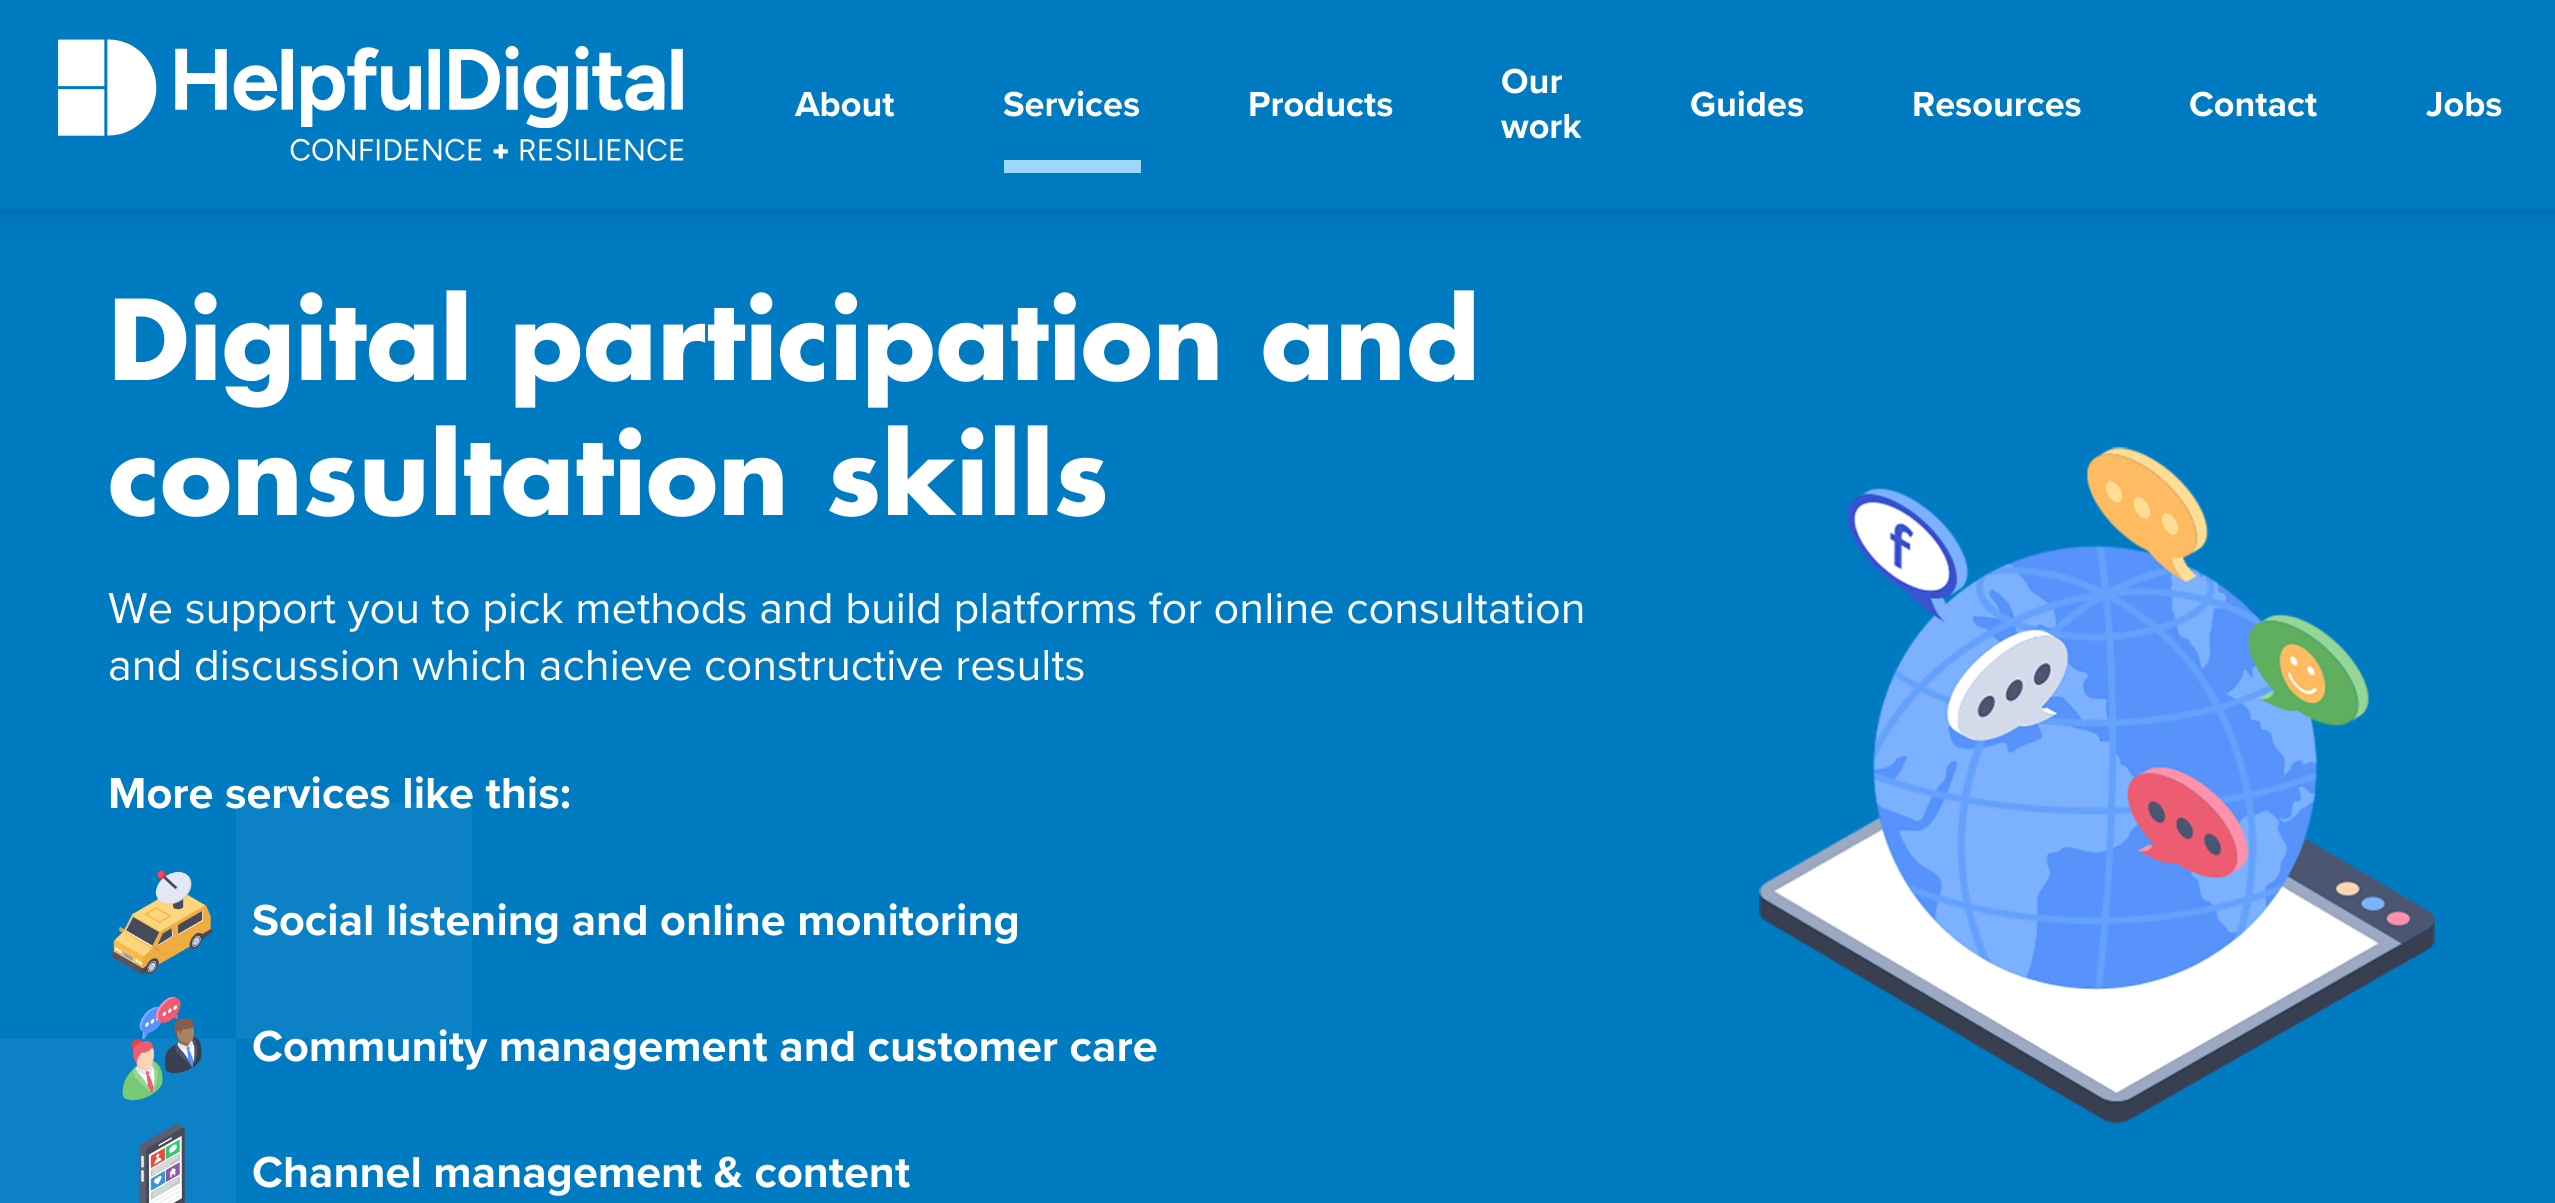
#include <cairo.h>
#include <math.h>
#include <stddef.h>

static cairo_t *ctx;

static void use_color(int r, int g, int b) {
    cairo_set_source_rgb(ctx, r / 255.0, g / 255.0, b / 255.0);
}

static void round_rect(double x, double y, double w, double h, double r) {
    cairo_new_sub_path(ctx);
    cairo_arc(ctx, x + w - r, y + h - r, r, 0, M_PI / 2);
    cairo_arc(ctx, x + r, y + h - r, r, M_PI / 2, M_PI);
    cairo_arc(ctx, x + r, y + r, r, M_PI, 1.5 * M_PI);
    cairo_arc(ctx, x + w - r, y + r, r, 1.5 * M_PI, 2 * M_PI);
    cairo_close_path(ctx);
}

static void shadow(double x, double y, double w, double h, double r, double blur, double alpha) {
    cairo_push_group_with_content(ctx, CAIRO_CONTENT_ALPHA);
    cairo_set_operator(ctx, CAIRO_OPERATOR_SOURCE);
    for (int i = 15; i >= -15 && fmin(w, h) + blur * i / 3 > 0; i -= 2) {
        double e = blur * i / 6;
        cairo_set_source_rgba(ctx, 0, 0, 0, alpha * erfc((i - 1) / 8.5) / 2);
        round_rect(x - e, y - e, w + 2 * e, h + 2 * e, fmax(0, fmin(r + e + blur * .6, fmin(w, h) / 2 + e)));
        cairo_fill(ctx);
    }
    cairo_pattern_t *soft = cairo_pop_group(ctx);
    cairo_mask(ctx, soft);
    cairo_pattern_destroy(soft);
}

static void picture(const char *path, double x, double y, double w, double h) {
    cairo_surface_t *image = cairo_image_surface_create_from_png(path);
    cairo_save(ctx);
    cairo_set_source_surface(ctx, image, x, y);
    cairo_rectangle(ctx, x, y, w, h);
    cairo_fill(ctx);
    cairo_restore(ctx);
    cairo_surface_destroy(image);
}

int main(void) {
    cairo_surface_t *surface = cairo_image_surface_create(CAIRO_FORMAT_RGB24, 2555, 1203);
    ctx = cairo_create(surface);
    cairo_font_options_t *options = cairo_font_options_create();
    cairo_font_options_set_hint_metrics(options, CAIRO_HINT_METRICS_OFF);
    cairo_font_options_set_hint_style(options, CAIRO_HINT_STYLE_NONE);
    cairo_set_font_options(ctx, options);
    cairo_set_miter_limit(ctx, 4);
    use_color(0, 123, 194);
    cairo_paint(ctx);
    use_color(0, 0, 0);
    shadow(-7, -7, 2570, 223, 0, 9, 0.1);
    use_color(0, 123, 194);
    cairo_rectangle(ctx, 0, 0, 2555, 209);
    cairo_fill(ctx);
    picture("img1.png", 58, 39, 626, 122);
    cairo_select_font_face(ctx, "Proxima Nova", CAIRO_FONT_SLANT_NORMAL, CAIRO_FONT_WEIGHT_BOLD);
    cairo_set_font_size(ctx, 36);
    use_color(255, 255, 255);
    cairo_move_to(ctx, 795, 116);
    cairo_show_text(ctx, "About");
    cairo_move_to(ctx, 1003, 116);
    cairo_show_text(ctx, "Services");
    use_color(157, 215, 252);
    cairo_rectangle(ctx, 1004, 160, 137, 13);
    cairo_fill(ctx);
    use_color(255, 255, 255);
    cairo_move_to(ctx, 1248, 116);
    cairo_show_text(ctx, "Products");
    cairo_move_to(ctx, 1501, 93);
    cairo_show_text(ctx, "Our");
    cairo_move_to(ctx, 1501, 138);
    cairo_show_text(ctx, "work");
    cairo_move_to(ctx, 1690, 116);
    cairo_show_text(ctx, "Guides");
    cairo_move_to(ctx, 1912, 116);
    cairo_show_text(ctx, "Resources");
    cairo_move_to(ctx, 2189, 116);
    cairo_show_text(ctx, "Contact");
    cairo_move_to(ctx, 2426, 116);
    cairo_show_text(ctx, "Jobs");
    use_color(12, 129, 197);
    cairo_rectangle(ctx, 236, 803, 236, 236);
    cairo_fill(ctx);
    cairo_rectangle(ctx, 0, 1039, 236, 164);
    cairo_fill(ctx);
    cairo_select_font_face(ctx, "Futura", CAIRO_FONT_SLANT_NORMAL, CAIRO_FONT_WEIGHT_BOLD);
    cairo_set_font_size(ctx, 108);
    use_color(255, 255, 255);
    cairo_move_to(ctx, 108, 380);
    cairo_show_text(ctx, "Digital participation and");
    cairo_move_to(ctx, 108, 515);
    cairo_show_text(ctx, "consultation skills");
    cairo_select_font_face(ctx, "Proxima Nova", CAIRO_FONT_SLANT_NORMAL, CAIRO_FONT_WEIGHT_NORMAL);
    cairo_set_font_size(ctx, 45);
    cairo_move_to(ctx, 108, 623);
    cairo_show_text(ctx, "We support you to pick methods and build platforms for online consultation");
    cairo_move_to(ctx, 108, 680);
    cairo_show_text(ctx, "and discussion which achieve constructive results");
    cairo_select_font_face(ctx, "Proxima Nova", CAIRO_FONT_SLANT_NORMAL, CAIRO_FONT_WEIGHT_BOLD);
    cairo_move_to(ctx, 108, 808);
    cairo_show_text(ctx, "More services like this:");
    picture("img2.png", 111, 870, 102, 105);
    cairo_move_to(ctx, 252, 935);
    cairo_show_text(ctx, "Social listening and online monitoring");
    picture("img3.png", 122, 996, 80, 105);
    cairo_move_to(ctx, 252, 1061);
    cairo_show_text(ctx, "Community management and customer care");
    picture("img4.png", 139, 1123, 46, 80);
    cairo_move_to(ctx, 252, 1187);
    cairo_show_text(ctx, "Channel management & content");
    picture("img5.png", 1759, 447, 676, 677);
    cairo_surface_write_to_png(surface, "result.png");
    cairo_font_options_destroy(options);
    cairo_destroy(ctx);
    cairo_surface_destroy(surface);
    return 0;
}
